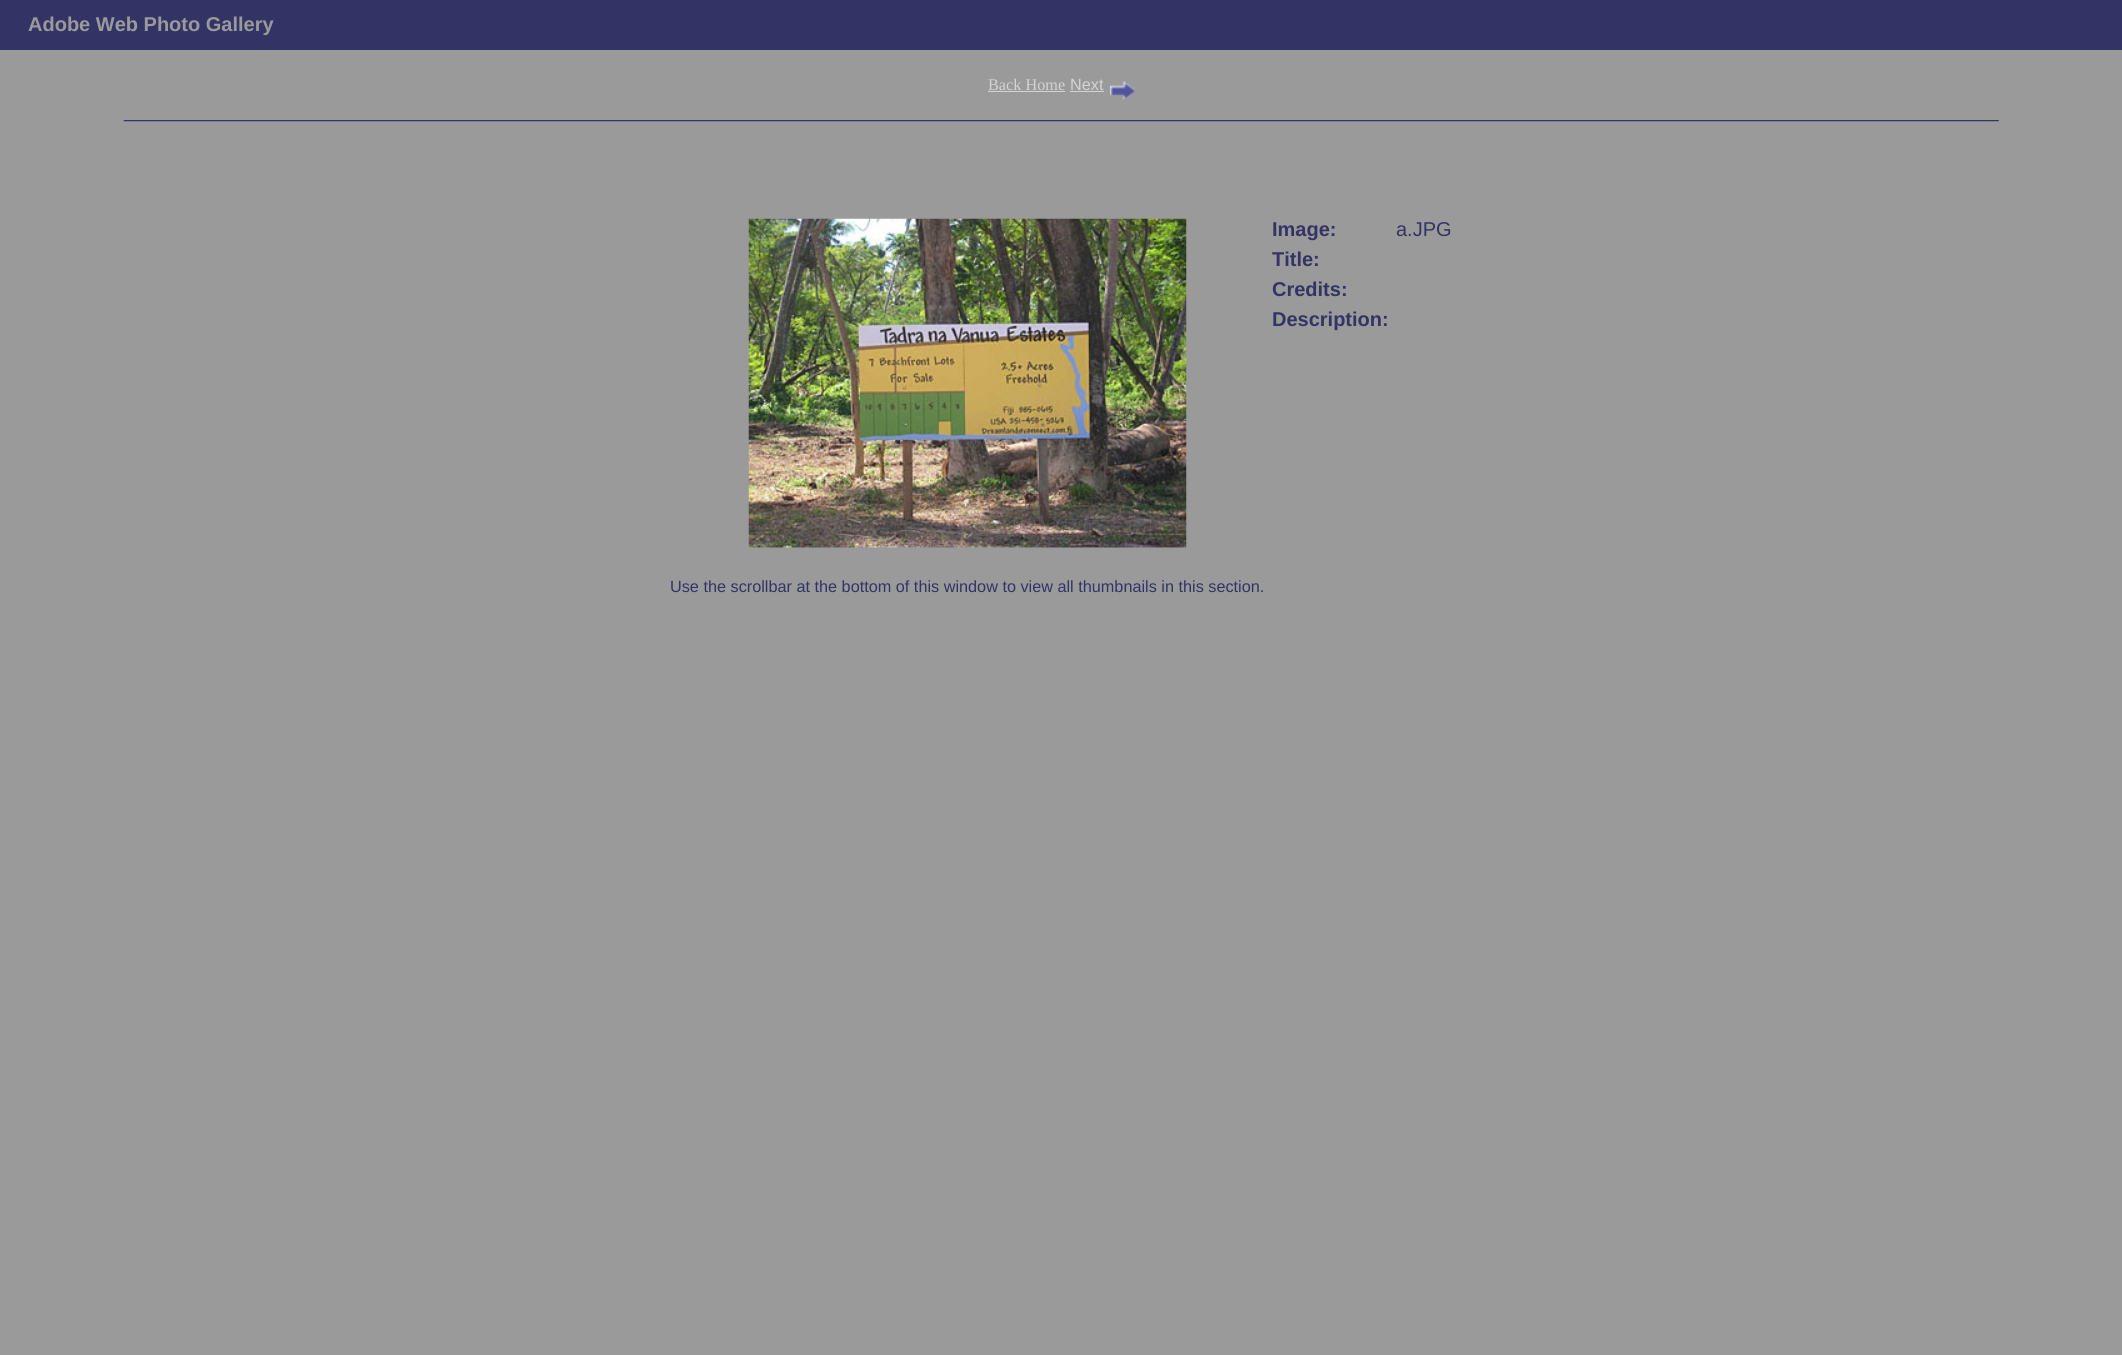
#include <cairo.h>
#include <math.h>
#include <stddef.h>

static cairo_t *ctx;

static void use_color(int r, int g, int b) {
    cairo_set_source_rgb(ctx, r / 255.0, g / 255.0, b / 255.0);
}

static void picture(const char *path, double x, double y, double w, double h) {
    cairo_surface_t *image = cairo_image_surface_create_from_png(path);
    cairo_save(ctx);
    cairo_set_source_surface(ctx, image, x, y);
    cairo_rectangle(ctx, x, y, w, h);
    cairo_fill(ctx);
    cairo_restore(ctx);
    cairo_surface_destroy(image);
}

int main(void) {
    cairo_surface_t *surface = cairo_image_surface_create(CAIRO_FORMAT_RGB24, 2122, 1355);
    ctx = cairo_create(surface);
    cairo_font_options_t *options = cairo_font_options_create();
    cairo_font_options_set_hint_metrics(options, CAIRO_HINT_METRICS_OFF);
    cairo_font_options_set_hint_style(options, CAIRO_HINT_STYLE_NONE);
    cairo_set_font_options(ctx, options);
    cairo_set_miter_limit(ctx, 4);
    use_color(154, 154, 154);
    cairo_paint(ctx);
    use_color(51, 51, 102);
    cairo_rectangle(ctx, 0, 0, 2122, 50);
    cairo_fill(ctx);
    cairo_select_font_face(ctx, "Liberation Sans", CAIRO_FONT_SLANT_NORMAL, CAIRO_FONT_WEIGHT_BOLD);
    cairo_set_font_size(ctx, 20);
    use_color(154, 154, 154);
    cairo_move_to(ctx, 28, 31);
    cairo_show_text(ctx, "Adobe Web Photo Gallery");
    cairo_select_font_face(ctx, "Liberation Serif", CAIRO_FONT_SLANT_NORMAL, CAIRO_FONT_WEIGHT_NORMAL);
    cairo_set_font_size(ctx, 16.25);
    use_color(211, 211, 211);
    cairo_move_to(ctx, 988, 90);
    cairo_show_text(ctx, "Back Home");
    cairo_rectangle(ctx, 988, 91, 77, 1);
    cairo_fill(ctx);
    cairo_select_font_face(ctx, "Liberation Sans", CAIRO_FONT_SLANT_NORMAL, CAIRO_FONT_WEIGHT_NORMAL);
    cairo_move_to(ctx, 1070, 90);
    cairo_show_text(ctx, "Next");
    cairo_rectangle(ctx, 1070, 91, 34, 1);
    cairo_fill(ctx);
    picture("img1.png", 1109, 81, 26, 19);
    picture("img2.png", 123, 120, 1876, 2);
    picture("img3.png", 748, 218, 439, 330);
    cairo_select_font_face(ctx, "Liberation Sans", CAIRO_FONT_SLANT_NORMAL, CAIRO_FONT_WEIGHT_BOLD);
    cairo_set_font_size(ctx, 20);
    use_color(51, 51, 102);
    cairo_move_to(ctx, 1272, 236);
    cairo_show_text(ctx, "Image:");
    cairo_select_font_face(ctx, "Liberation Sans", CAIRO_FONT_SLANT_NORMAL, CAIRO_FONT_WEIGHT_NORMAL);
    cairo_move_to(ctx, 1396, 236);
    cairo_show_text(ctx, "a.JPG");
    cairo_select_font_face(ctx, "Liberation Sans", CAIRO_FONT_SLANT_NORMAL, CAIRO_FONT_WEIGHT_BOLD);
    cairo_move_to(ctx, 1272, 266);
    cairo_show_text(ctx, "Title:");
    cairo_move_to(ctx, 1272, 296);
    cairo_show_text(ctx, "Credits:");
    cairo_move_to(ctx, 1272, 326);
    cairo_show_text(ctx, "Description:");
    cairo_select_font_face(ctx, "Liberation Sans", CAIRO_FONT_SLANT_NORMAL, CAIRO_FONT_WEIGHT_NORMAL);
    cairo_set_font_size(ctx, 16.25);
    cairo_move_to(ctx, 670, 592);
    cairo_show_text(ctx, "Use the scrollbar at the bottom of this window to view all thumbnails in this section.");
    cairo_surface_write_to_png(surface, "result.png");
    cairo_font_options_destroy(options);
    cairo_destroy(ctx);
    cairo_surface_destroy(surface);
    return 0;
}
